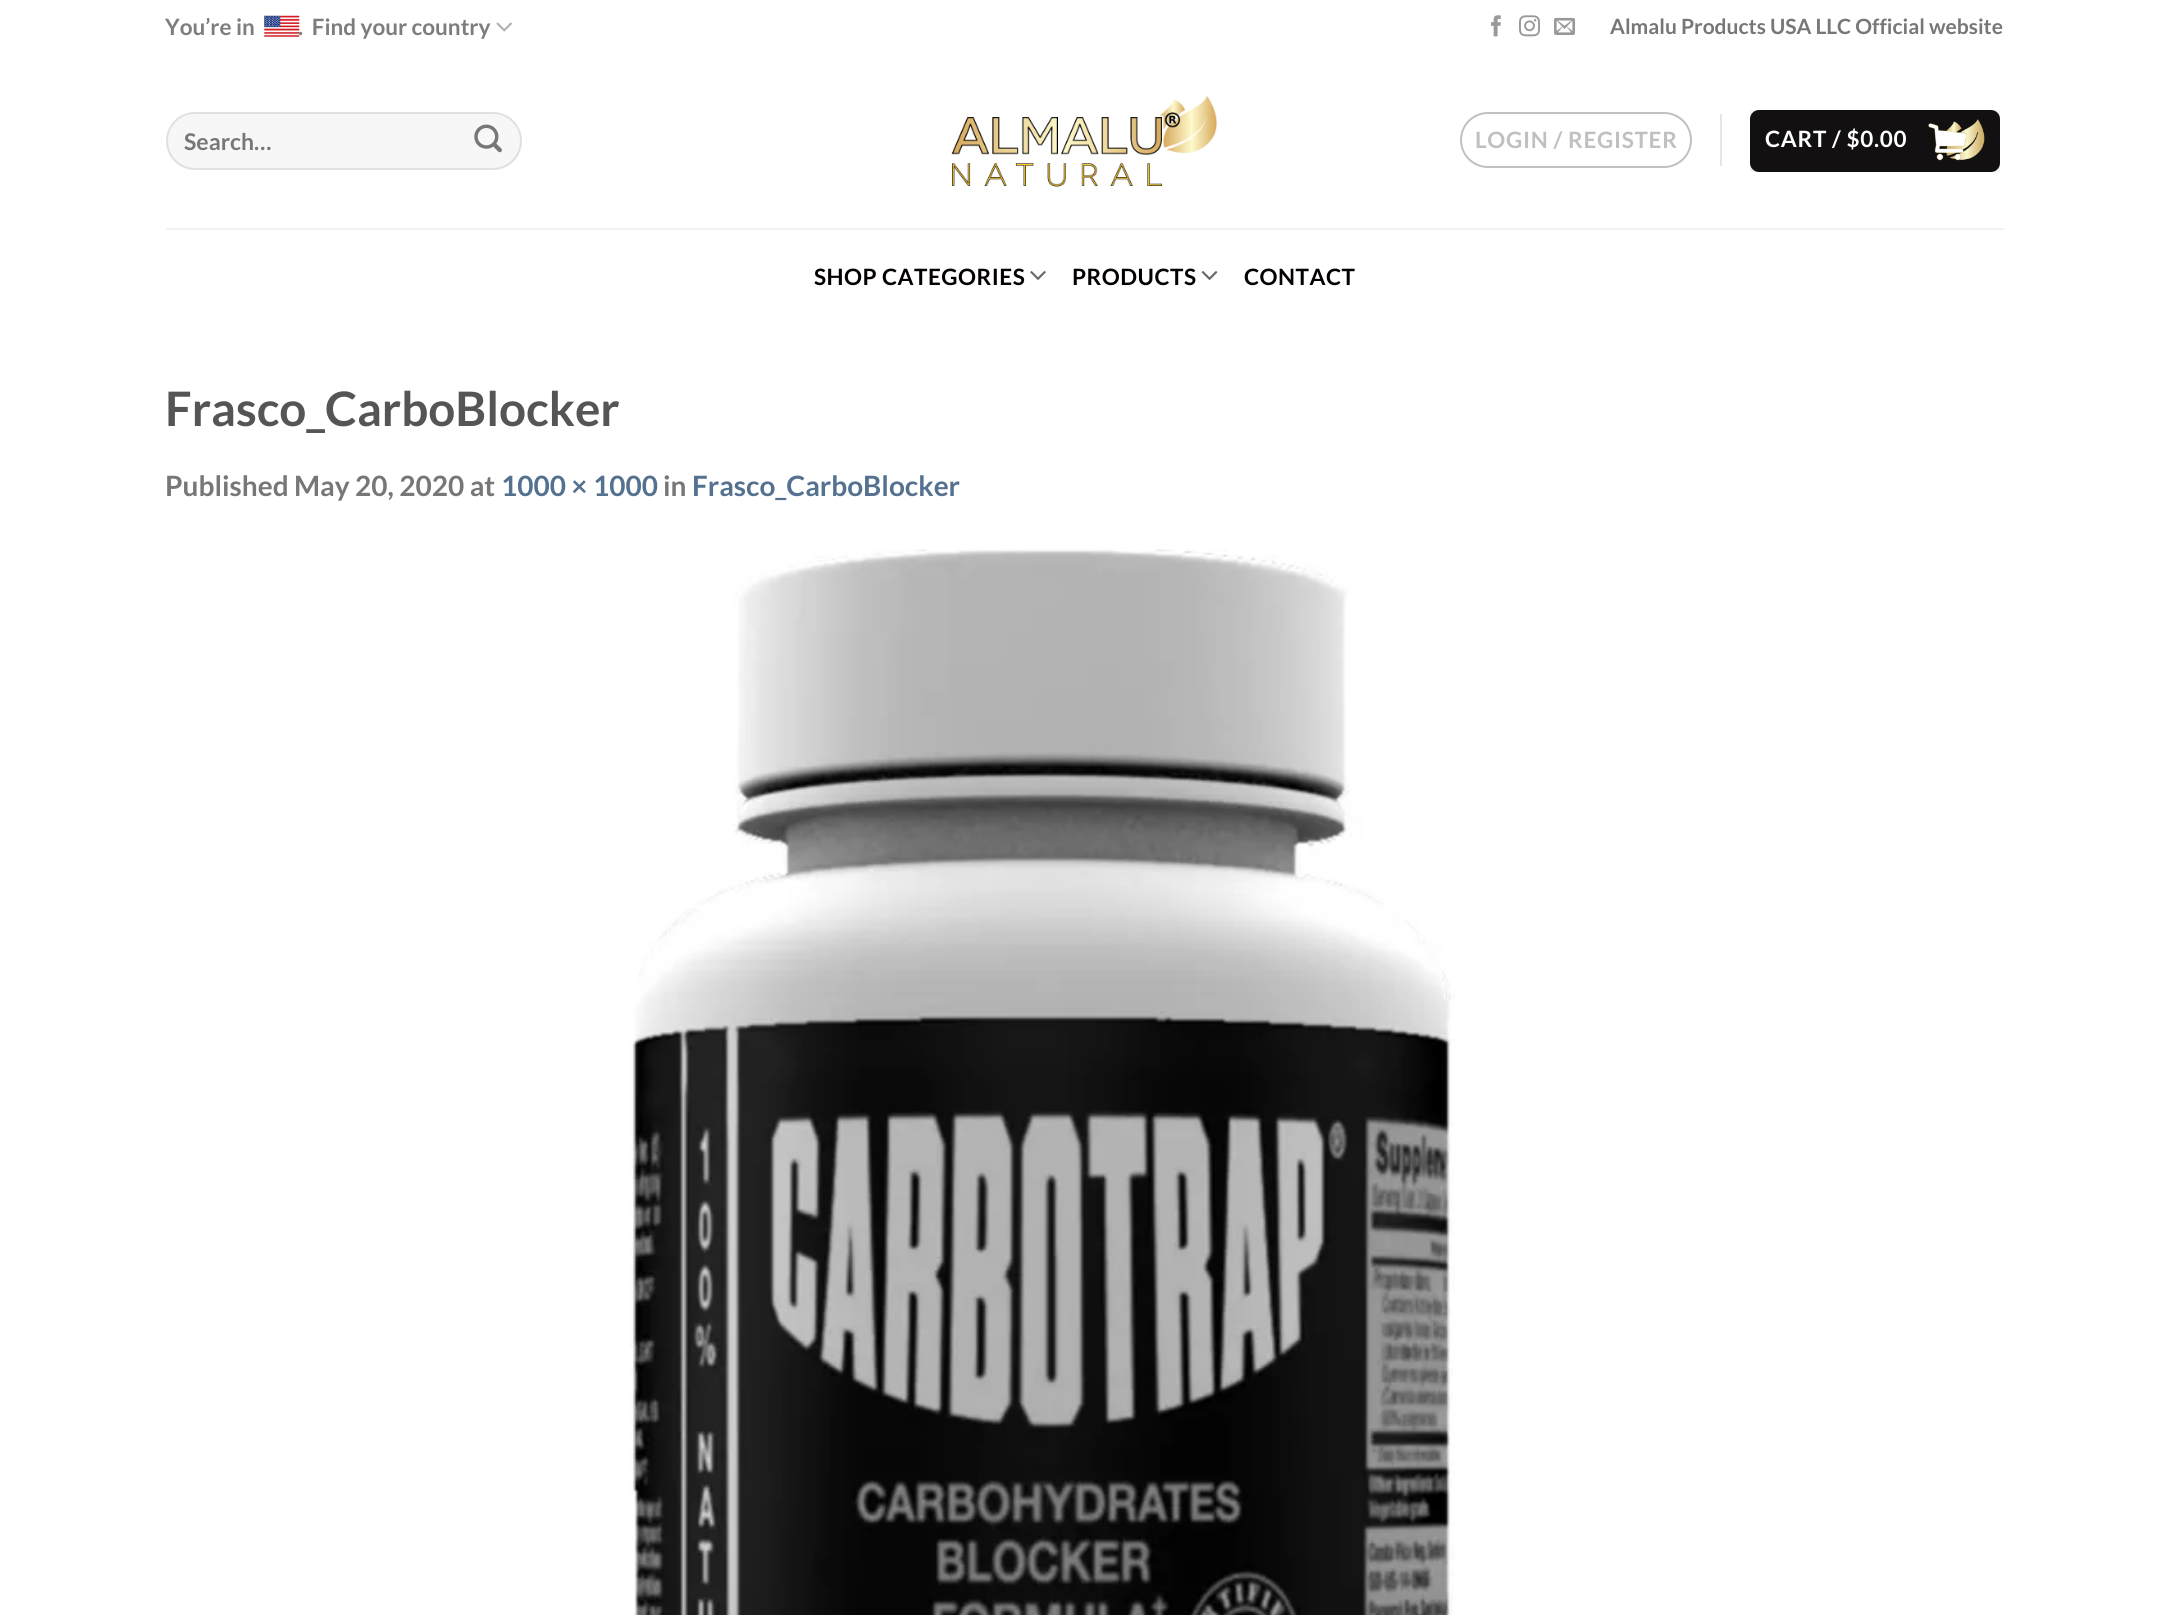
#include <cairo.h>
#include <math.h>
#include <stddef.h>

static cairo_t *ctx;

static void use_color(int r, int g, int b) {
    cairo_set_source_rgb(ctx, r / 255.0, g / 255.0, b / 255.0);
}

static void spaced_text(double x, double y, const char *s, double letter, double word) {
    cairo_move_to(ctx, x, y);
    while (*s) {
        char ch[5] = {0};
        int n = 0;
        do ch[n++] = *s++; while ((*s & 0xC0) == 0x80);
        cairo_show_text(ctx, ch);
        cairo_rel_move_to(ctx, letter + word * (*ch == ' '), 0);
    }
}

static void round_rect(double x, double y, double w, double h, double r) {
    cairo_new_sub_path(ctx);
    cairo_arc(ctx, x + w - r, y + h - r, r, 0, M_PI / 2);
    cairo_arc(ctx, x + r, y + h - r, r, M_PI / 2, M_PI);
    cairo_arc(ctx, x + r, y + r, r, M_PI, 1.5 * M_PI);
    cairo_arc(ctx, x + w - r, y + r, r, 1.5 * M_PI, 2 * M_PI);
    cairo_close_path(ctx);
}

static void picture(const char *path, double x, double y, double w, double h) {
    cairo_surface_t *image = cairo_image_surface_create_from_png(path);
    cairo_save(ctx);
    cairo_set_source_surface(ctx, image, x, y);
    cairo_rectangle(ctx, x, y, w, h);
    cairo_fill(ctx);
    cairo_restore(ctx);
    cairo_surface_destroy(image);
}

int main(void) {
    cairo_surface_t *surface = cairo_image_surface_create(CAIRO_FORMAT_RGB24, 2168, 1615);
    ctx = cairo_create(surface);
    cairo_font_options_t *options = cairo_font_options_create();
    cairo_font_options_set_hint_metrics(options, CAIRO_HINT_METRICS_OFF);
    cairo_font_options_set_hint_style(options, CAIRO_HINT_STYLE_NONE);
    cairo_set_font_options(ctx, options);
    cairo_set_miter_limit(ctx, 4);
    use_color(255, 255, 255);
    cairo_paint(ctx);
    cairo_select_font_face(ctx, "Lato", CAIRO_FONT_SLANT_NORMAL, CAIRO_FONT_WEIGHT_BOLD);
    cairo_set_font_size(ctx, 22.5);
    use_color(125, 125, 125);
    cairo_move_to(ctx, 165, 35);
    cairo_show_text(ctx, "You’re in");
    picture("img1.png", 264, 15, 36, 22);
    cairo_move_to(ctx, 298, 35);
    cairo_show_text(ctx, ".  Find your country");
    picture("img2.png", 496, 22, 16, 10);
    picture("img3.png", 1491, 15, 10, 22);
    picture("img4.png", 1519, 15, 21, 22);
    picture("img5.png", 1554, 17, 21, 18);
    cairo_set_font_size(ctx, 21);
    use_color(119, 119, 119);
    cairo_move_to(ctx, 1610, 34);
    cairo_show_text(ctx, "Almalu Products USA LLC Official website");
    use_color(247, 247, 247);
    round_rect(166, 112, 356, 58, 29);
    cairo_fill(ctx);
    round_rect(167, 113, 354, 56, 28);
    cairo_set_source_rgba(ctx, 0, 0, 0, 0.09);
    cairo_stroke(ctx);
    cairo_set_font_size(ctx, 23);
    use_color(119, 119, 119);
    cairo_move_to(ctx, 184, 150);
    cairo_show_text(ctx, "Search…");
    picture("img6.png", 474, 124, 28, 29);
    picture("img7.png", 951, 95, 266, 92);
    round_rect(1461, 113, 230, 54, 27);
    use_color(192, 192, 192);
    cairo_stroke(ctx);
    cairo_set_font_size(ctx, 22.5);
    spaced_text(1475, 148, "LOGIN / REGISTER", 0.7, 0);
    use_color(230, 230, 230);
    cairo_rectangle(ctx, 1720, 114, 2, 52);
    cairo_fill(ctx);
    use_color(18, 16, 16);
    round_rect(1750, 110, 250, 62, 9);
    cairo_fill(ctx);
    cairo_rectangle(ctx, 1751, 111, 248, 60);
    cairo_set_source_rgba(ctx, 0, 0, 0, 0.05);
    cairo_stroke(ctx);
    use_color(255, 255, 255);
    spaced_text(1765, 147, "CART / $0.00", 0.7, 0);
    picture("img8.png", 1928, 119, 57, 42);
    use_color(241, 241, 241);
    cairo_rectangle(ctx, 166, 228, 1838, 2);
    cairo_fill(ctx);
    use_color(5, 0, 0);
    spaced_text(814, 285, "SHOP CATEGORIES", 0.5, 0);
    picture("img9.png", 1030, 271, 16, 9);
    spaced_text(1072, 285, "PRODUCTS", 0.5, 0);
    picture("img10.png", 1201, 271, 17, 9);
    spaced_text(1244, 285, "CONTACT", 0.5, 0);
    cairo_set_font_size(ctx, 47.5);
    use_color(85, 85, 85);
    cairo_move_to(ctx, 165, 426);
    cairo_show_text(ctx, "Frasco_CarboBlocker");
    cairo_set_font_size(ctx, 28);
    use_color(119, 119, 119);
    cairo_move_to(ctx, 165, 496);
    cairo_show_text(ctx, "Published May 20, 2020 at");
    use_color(84, 113, 144);
    cairo_move_to(ctx, 501, 496);
    cairo_show_text(ctx, "1000 × 1000");
    use_color(119, 119, 119);
    cairo_move_to(ctx, 663, 496);
    cairo_show_text(ctx, "in");
    use_color(84, 113, 144);
    cairo_move_to(ctx, 692, 496);
    cairo_show_text(ctx, "Frasco_CarboBlocker");
    picture("img11.png", 629, 549, 826, 1066);
    cairo_surface_write_to_png(surface, "result.png");
    cairo_font_options_destroy(options);
    cairo_destroy(ctx);
    cairo_surface_destroy(surface);
    return 0;
}
